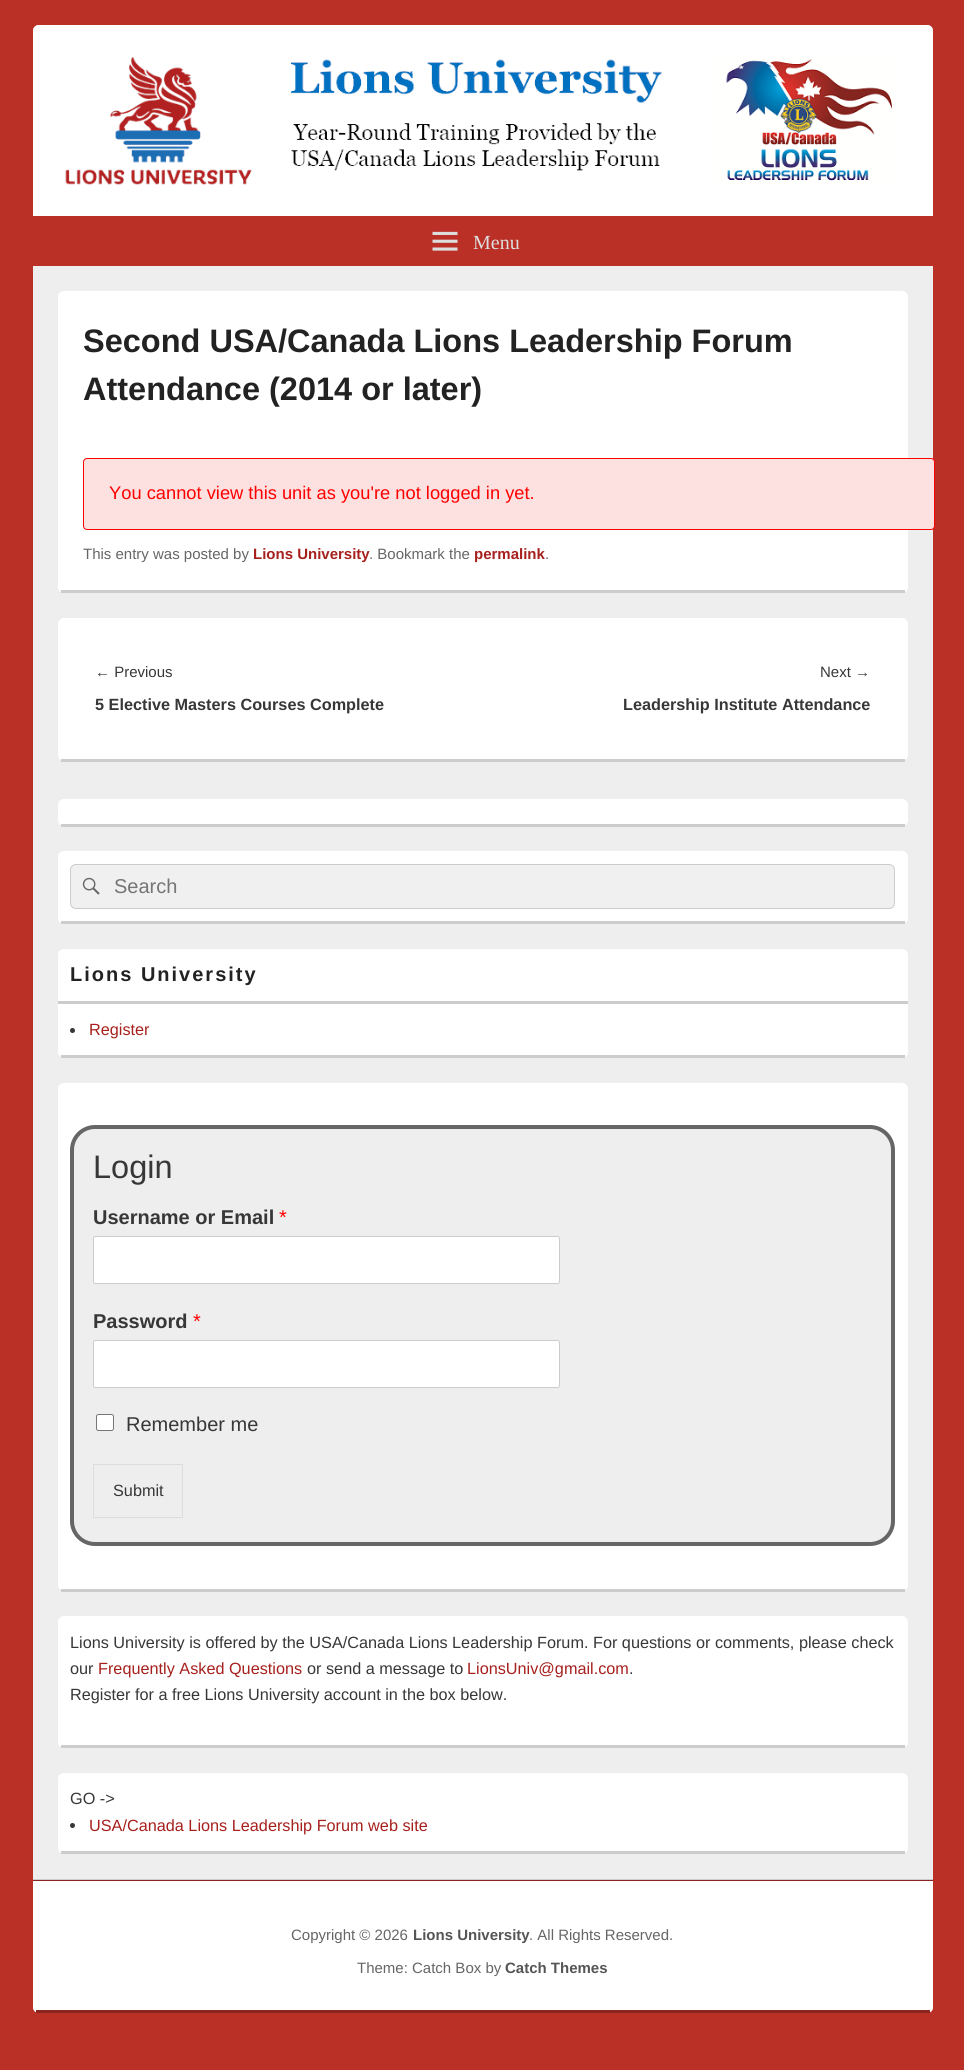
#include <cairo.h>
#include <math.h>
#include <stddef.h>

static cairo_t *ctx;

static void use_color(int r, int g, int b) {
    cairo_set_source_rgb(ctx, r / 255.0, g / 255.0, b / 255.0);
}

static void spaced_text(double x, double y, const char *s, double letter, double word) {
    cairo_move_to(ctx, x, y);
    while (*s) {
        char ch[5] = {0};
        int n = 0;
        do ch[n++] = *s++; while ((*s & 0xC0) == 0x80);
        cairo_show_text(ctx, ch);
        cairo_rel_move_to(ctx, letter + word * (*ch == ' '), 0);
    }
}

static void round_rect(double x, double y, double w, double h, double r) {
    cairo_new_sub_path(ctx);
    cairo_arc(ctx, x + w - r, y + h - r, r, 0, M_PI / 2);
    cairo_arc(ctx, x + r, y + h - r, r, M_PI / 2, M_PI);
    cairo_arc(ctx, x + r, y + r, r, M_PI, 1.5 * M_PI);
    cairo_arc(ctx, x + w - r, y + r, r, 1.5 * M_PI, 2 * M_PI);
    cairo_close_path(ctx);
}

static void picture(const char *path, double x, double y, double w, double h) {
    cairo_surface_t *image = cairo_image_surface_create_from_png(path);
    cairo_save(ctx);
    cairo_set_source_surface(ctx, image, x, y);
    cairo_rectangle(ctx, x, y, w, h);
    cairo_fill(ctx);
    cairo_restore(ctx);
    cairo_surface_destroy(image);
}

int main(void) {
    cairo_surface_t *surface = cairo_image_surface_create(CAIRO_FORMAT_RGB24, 964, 2070);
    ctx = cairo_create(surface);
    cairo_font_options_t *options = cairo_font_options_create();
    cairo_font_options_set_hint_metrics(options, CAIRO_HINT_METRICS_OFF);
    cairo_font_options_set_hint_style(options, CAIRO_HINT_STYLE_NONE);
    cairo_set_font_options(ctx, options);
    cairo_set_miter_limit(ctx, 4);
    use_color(186, 48, 39);
    cairo_paint(ctx);
    use_color(238, 238, 238);
    round_rect(33, 25, 900, 1988, 6);
    cairo_fill(ctx);
    use_color(255, 255, 255);
    cairo_new_path(ctx);
    cairo_move_to(ctx, 39, 25);
    cairo_line_to(ctx, 927, 25);
    cairo_curve_to(ctx, 930.5, 25, 933, 27.5, 933, 31);
    cairo_line_to(ctx, 933, 266);
    cairo_line_to(ctx, 33, 266);
    cairo_line_to(ctx, 33, 31);
    cairo_curve_to(ctx, 33, 27.5, 35.5, 25, 39, 25);
    cairo_close_path(ctx);
    cairo_fill(ctx);
    picture("img1.png", 65, 57, 828, 128);
    use_color(186, 48, 39);
    cairo_rectangle(ctx, 33, 216, 900, 50);
    cairo_fill(ctx);
    picture("img2.png", 432, 231, 26, 20);
    cairo_select_font_face(ctx, "Liberation Serif", CAIRO_FONT_SLANT_NORMAL, CAIRO_FONT_WEIGHT_NORMAL);
    cairo_set_font_size(ctx, 20);
    use_color(221, 221, 221);
    cairo_move_to(ctx, 473, 249);
    cairo_show_text(ctx, "Menu");
    use_color(255, 255, 255);
    round_rect(58, 291, 850, 302, 6);
    cairo_fill(ctx);
    use_color(204, 204, 204);
    cairo_rectangle(ctx, 61, 590, 844, 3);
    cairo_fill(ctx);
    cairo_select_font_face(ctx, "Liberation Sans", CAIRO_FONT_SLANT_NORMAL, CAIRO_FONT_WEIGHT_BOLD);
    cairo_set_font_size(ctx, 32.5);
    use_color(34, 34, 34);
    cairo_move_to(ctx, 83, 352);
    cairo_show_text(ctx, "Second USA/Canada Lions Leadership Forum");
    cairo_move_to(ctx, 83, 400);
    cairo_show_text(ctx, "Attendance (2014 or later)");
    use_color(253, 224, 224);
    round_rect(83.5, 458.5, 851, 71, 3.5);
    cairo_fill_preserve(ctx);
    use_color(255, 0, 0);
    cairo_set_line_width(ctx, 1);
    cairo_stroke(ctx);
    cairo_select_font_face(ctx, "Liberation Sans", CAIRO_FONT_SLANT_NORMAL, CAIRO_FONT_WEIGHT_NORMAL);
    cairo_set_font_size(ctx, 18.3);
    cairo_move_to(ctx, 109, 499);
    cairo_show_text(ctx, "You cannot view this unit as you're not logged in yet.");
    cairo_set_font_size(ctx, 15);
    use_color(102, 102, 102);
    cairo_move_to(ctx, 83, 559);
    cairo_show_text(ctx, "This entry was posted by");
    cairo_select_font_face(ctx, "Liberation Sans", CAIRO_FONT_SLANT_NORMAL, CAIRO_FONT_WEIGHT_BOLD);
    use_color(166, 32, 29);
    cairo_move_to(ctx, 253, 559);
    cairo_show_text(ctx, "Lions University");
    cairo_select_font_face(ctx, "Liberation Sans", CAIRO_FONT_SLANT_NORMAL, CAIRO_FONT_WEIGHT_NORMAL);
    use_color(102, 102, 102);
    cairo_move_to(ctx, 369, 559);
    cairo_show_text(ctx, ". Bookmark the");
    cairo_select_font_face(ctx, "Liberation Sans", CAIRO_FONT_SLANT_NORMAL, CAIRO_FONT_WEIGHT_BOLD);
    use_color(166, 32, 29);
    cairo_move_to(ctx, 474, 559);
    cairo_show_text(ctx, "permalink");
    cairo_select_font_face(ctx, "Liberation Sans", CAIRO_FONT_SLANT_NORMAL, CAIRO_FONT_WEIGHT_NORMAL);
    use_color(102, 102, 102);
    cairo_move_to(ctx, 545, 559);
    cairo_show_text(ctx, ".");
    use_color(255, 255, 255);
    round_rect(58, 618, 850, 143, 6);
    cairo_fill(ctx);
    use_color(204, 204, 204);
    cairo_rectangle(ctx, 61, 759, 844, 3);
    cairo_fill(ctx);
    use_color(55, 55, 55);
    cairo_move_to(ctx, 95, 677);
    cairo_show_text(ctx, "← Previous");
    cairo_select_font_face(ctx, "Liberation Sans", CAIRO_FONT_SLANT_NORMAL, CAIRO_FONT_WEIGHT_BOLD);
    cairo_set_font_size(ctx, 16.25);
    cairo_move_to(ctx, 95, 710);
    cairo_show_text(ctx, "5 Elective Masters Courses Complete");
    cairo_select_font_face(ctx, "Liberation Sans", CAIRO_FONT_SLANT_NORMAL, CAIRO_FONT_WEIGHT_NORMAL);
    cairo_set_font_size(ctx, 15);
    cairo_move_to(ctx, 820, 677);
    cairo_show_text(ctx, "Next →");
    cairo_select_font_face(ctx, "Liberation Sans", CAIRO_FONT_SLANT_NORMAL, CAIRO_FONT_WEIGHT_BOLD);
    cairo_set_font_size(ctx, 16.25);
    cairo_move_to(ctx, 623, 710);
    cairo_show_text(ctx, "Leadership Institute Attendance");
    use_color(255, 255, 255);
    round_rect(58, 799, 850, 27, 6);
    cairo_fill(ctx);
    use_color(204, 204, 204);
    cairo_rectangle(ctx, 61, 824, 844, 3);
    cairo_fill(ctx);
    use_color(255, 255, 255);
    round_rect(58, 851, 850, 73, 6);
    cairo_fill(ctx);
    use_color(204, 204, 204);
    cairo_rectangle(ctx, 61, 921, 844, 3);
    cairo_fill(ctx);
    use_color(240, 240, 240);
    round_rect(70.5, 864.5, 824, 44, 5.5);
    cairo_fill_preserve(ctx);
    use_color(204, 204, 204);
    cairo_stroke(ctx);
    picture("img3.png", 82, 877, 18, 18);
    cairo_select_font_face(ctx, "Liberation Sans", CAIRO_FONT_SLANT_NORMAL, CAIRO_FONT_WEIGHT_NORMAL);
    cairo_set_font_size(ctx, 20);
    use_color(117, 117, 117);
    cairo_move_to(ctx, 114, 893);
    cairo_show_text(ctx, "Search");
    use_color(255, 255, 255);
    round_rect(58, 949, 850, 109, 6);
    cairo_fill(ctx);
    use_color(204, 204, 204);
    cairo_rectangle(ctx, 61, 1055, 844, 3);
    cairo_fill(ctx);
    cairo_rectangle(ctx, 58, 1001, 850, 3);
    cairo_fill(ctx);
    cairo_select_font_face(ctx, "Liberation Sans", CAIRO_FONT_SLANT_NORMAL, CAIRO_FONT_WEIGHT_BOLD);
    use_color(34, 34, 34);
    spaced_text(70, 981, "Lions University", 2, 0);
    use_color(55, 55, 55);
    cairo_new_path(ctx);
    cairo_arc(ctx, 72.5, 1030.5, 2.5, 0, 2 * M_PI);
    cairo_fill(ctx);
    cairo_select_font_face(ctx, "Liberation Sans", CAIRO_FONT_SLANT_NORMAL, CAIRO_FONT_WEIGHT_NORMAL);
    cairo_set_font_size(ctx, 16.25);
    use_color(166, 32, 29);
    cairo_move_to(ctx, 89, 1035);
    cairo_show_text(ctx, "Register");
    use_color(255, 255, 255);
    round_rect(58, 1083, 850, 508, 6);
    cairo_fill(ctx);
    use_color(204, 204, 204);
    cairo_rectangle(ctx, 61, 1589, 844, 3);
    cairo_fill(ctx);
    use_color(238, 238, 238);
    round_rect(72, 1127, 821, 417, 23);
    cairo_fill_preserve(ctx);
    use_color(102, 102, 102);
    cairo_set_line_width(ctx, 4);
    cairo_stroke(ctx);
    cairo_set_font_size(ctx, 32.5);
    use_color(55, 55, 55);
    cairo_move_to(ctx, 93, 1178);
    cairo_show_text(ctx, "Login");
    cairo_select_font_face(ctx, "Liberation Sans", CAIRO_FONT_SLANT_NORMAL, CAIRO_FONT_WEIGHT_BOLD);
    cairo_set_font_size(ctx, 20);
    cairo_move_to(ctx, 93, 1224);
    cairo_show_text(ctx, "Username or Email");
    cairo_select_font_face(ctx, "Liberation Sans", CAIRO_FONT_SLANT_NORMAL, CAIRO_FONT_WEIGHT_NORMAL);
    use_color(255, 0, 0);
    cairo_move_to(ctx, 279, 1224);
    cairo_show_text(ctx, "*");
    use_color(255, 255, 255);
    round_rect(93.5, 1236.5, 466, 47, 2);
    cairo_fill_preserve(ctx);
    use_color(204, 204, 204);
    cairo_set_line_width(ctx, 1);
    cairo_stroke(ctx);
    cairo_select_font_face(ctx, "Liberation Sans", CAIRO_FONT_SLANT_NORMAL, CAIRO_FONT_WEIGHT_BOLD);
    use_color(55, 55, 55);
    cairo_move_to(ctx, 93, 1328);
    cairo_show_text(ctx, "Password");
    cairo_select_font_face(ctx, "Liberation Sans", CAIRO_FONT_SLANT_NORMAL, CAIRO_FONT_WEIGHT_NORMAL);
    use_color(255, 0, 0);
    cairo_move_to(ctx, 193, 1328);
    cairo_show_text(ctx, "*");
    use_color(255, 255, 255);
    round_rect(93.5, 1340.5, 466, 47, 2);
    cairo_fill_preserve(ctx);
    use_color(204, 204, 204);
    cairo_stroke(ctx);
    use_color(255, 255, 255);
    round_rect(96.5, 1414.5, 17, 16, 2);
    cairo_fill_preserve(ctx);
    use_color(118, 118, 118);
    cairo_stroke(ctx);
    use_color(55, 55, 55);
    cairo_move_to(ctx, 126, 1431);
    cairo_show_text(ctx, "Remember me");
    cairo_rectangle(ctx, 93.5, 1464.5, 89, 53);
    use_color(221, 221, 221);
    cairo_stroke(ctx);
    cairo_set_font_size(ctx, 16.25);
    use_color(55, 55, 55);
    cairo_move_to(ctx, 113, 1496);
    cairo_show_text(ctx, "Submit");
    use_color(255, 255, 255);
    round_rect(58, 1616, 850, 132, 6);
    cairo_fill(ctx);
    use_color(204, 204, 204);
    cairo_rectangle(ctx, 61, 1745, 844, 3);
    cairo_fill(ctx);
    use_color(55, 55, 55);
    cairo_move_to(ctx, 70, 1648);
    cairo_show_text(ctx, "Lions University is offered by the USA/Canada Lions Leadership Forum. For questions or comments, please check");
    cairo_move_to(ctx, 70, 1674);
    cairo_show_text(ctx, "our");
    use_color(166, 32, 29);
    cairo_move_to(ctx, 98, 1674);
    cairo_show_text(ctx, "Frequently Asked Questions");
    use_color(55, 55, 55);
    cairo_move_to(ctx, 307, 1674);
    cairo_show_text(ctx, "or send a message to");
    use_color(166, 32, 29);
    cairo_move_to(ctx, 467, 1674);
    cairo_show_text(ctx, "LionsUniv@gmail.com");
    use_color(55, 55, 55);
    cairo_move_to(ctx, 629, 1674);
    cairo_show_text(ctx, ".");
    cairo_move_to(ctx, 70, 1700);
    cairo_show_text(ctx, "Register for a free Lions University account in the box below.");
    use_color(255, 255, 255);
    round_rect(58, 1773, 850, 81, 6);
    cairo_fill(ctx);
    use_color(204, 204, 204);
    cairo_rectangle(ctx, 61, 1851, 844, 3);
    cairo_fill(ctx);
    use_color(55, 55, 55);
    cairo_move_to(ctx, 70, 1804);
    cairo_show_text(ctx, "GO ->");
    cairo_new_path(ctx);
    cairo_arc(ctx, 72.5, 1825.5, 2.5, 0, 2 * M_PI);
    cairo_fill(ctx);
    use_color(166, 32, 29);
    cairo_move_to(ctx, 89, 1831);
    cairo_show_text(ctx, "USA/Canada Lions Leadership Forum web site");
    use_color(204, 204, 204);
    cairo_rectangle(ctx, 33, 1879, 900, 1);
    cairo_fill(ctx);
    use_color(255, 255, 255);
    cairo_new_path(ctx);
    cairo_move_to(ctx, 33, 1880);
    cairo_line_to(ctx, 933, 1880);
    cairo_line_to(ctx, 933, 2007);
    cairo_curve_to(ctx, 933, 2010.5, 930.5, 2013, 927, 2013);
    cairo_line_to(ctx, 39, 2013);
    cairo_curve_to(ctx, 35.5, 2013, 33, 2010.5, 33, 2007);
    cairo_close_path(ctx);
    cairo_fill(ctx);
    use_color(137, 37, 30);
    cairo_rectangle(ctx, 33, 1880, 900, 1);
    cairo_fill(ctx);
    cairo_rectangle(ctx, 36, 2010, 894, 3);
    cairo_fill(ctx);
    cairo_set_font_size(ctx, 15);
    use_color(102, 102, 102);
    cairo_move_to(ctx, 291, 1940);
    cairo_show_text(ctx, "Copyright © 2026");
    cairo_select_font_face(ctx, "Liberation Sans", CAIRO_FONT_SLANT_NORMAL, CAIRO_FONT_WEIGHT_BOLD);
    use_color(85, 85, 85);
    cairo_move_to(ctx, 413, 1940);
    cairo_show_text(ctx, "Lions University");
    cairo_select_font_face(ctx, "Liberation Sans", CAIRO_FONT_SLANT_NORMAL, CAIRO_FONT_WEIGHT_NORMAL);
    use_color(102, 102, 102);
    cairo_move_to(ctx, 529, 1940);
    cairo_show_text(ctx, ". All Rights Reserved.");
    cairo_move_to(ctx, 357, 1973);
    cairo_show_text(ctx, "Theme: Catch Box by");
    cairo_select_font_face(ctx, "Liberation Sans", CAIRO_FONT_SLANT_NORMAL, CAIRO_FONT_WEIGHT_BOLD);
    use_color(85, 85, 85);
    cairo_move_to(ctx, 505, 1973);
    cairo_show_text(ctx, "Catch Themes");
    cairo_surface_write_to_png(surface, "result.png");
    cairo_font_options_destroy(options);
    cairo_destroy(ctx);
    cairo_surface_destroy(surface);
    return 0;
}
